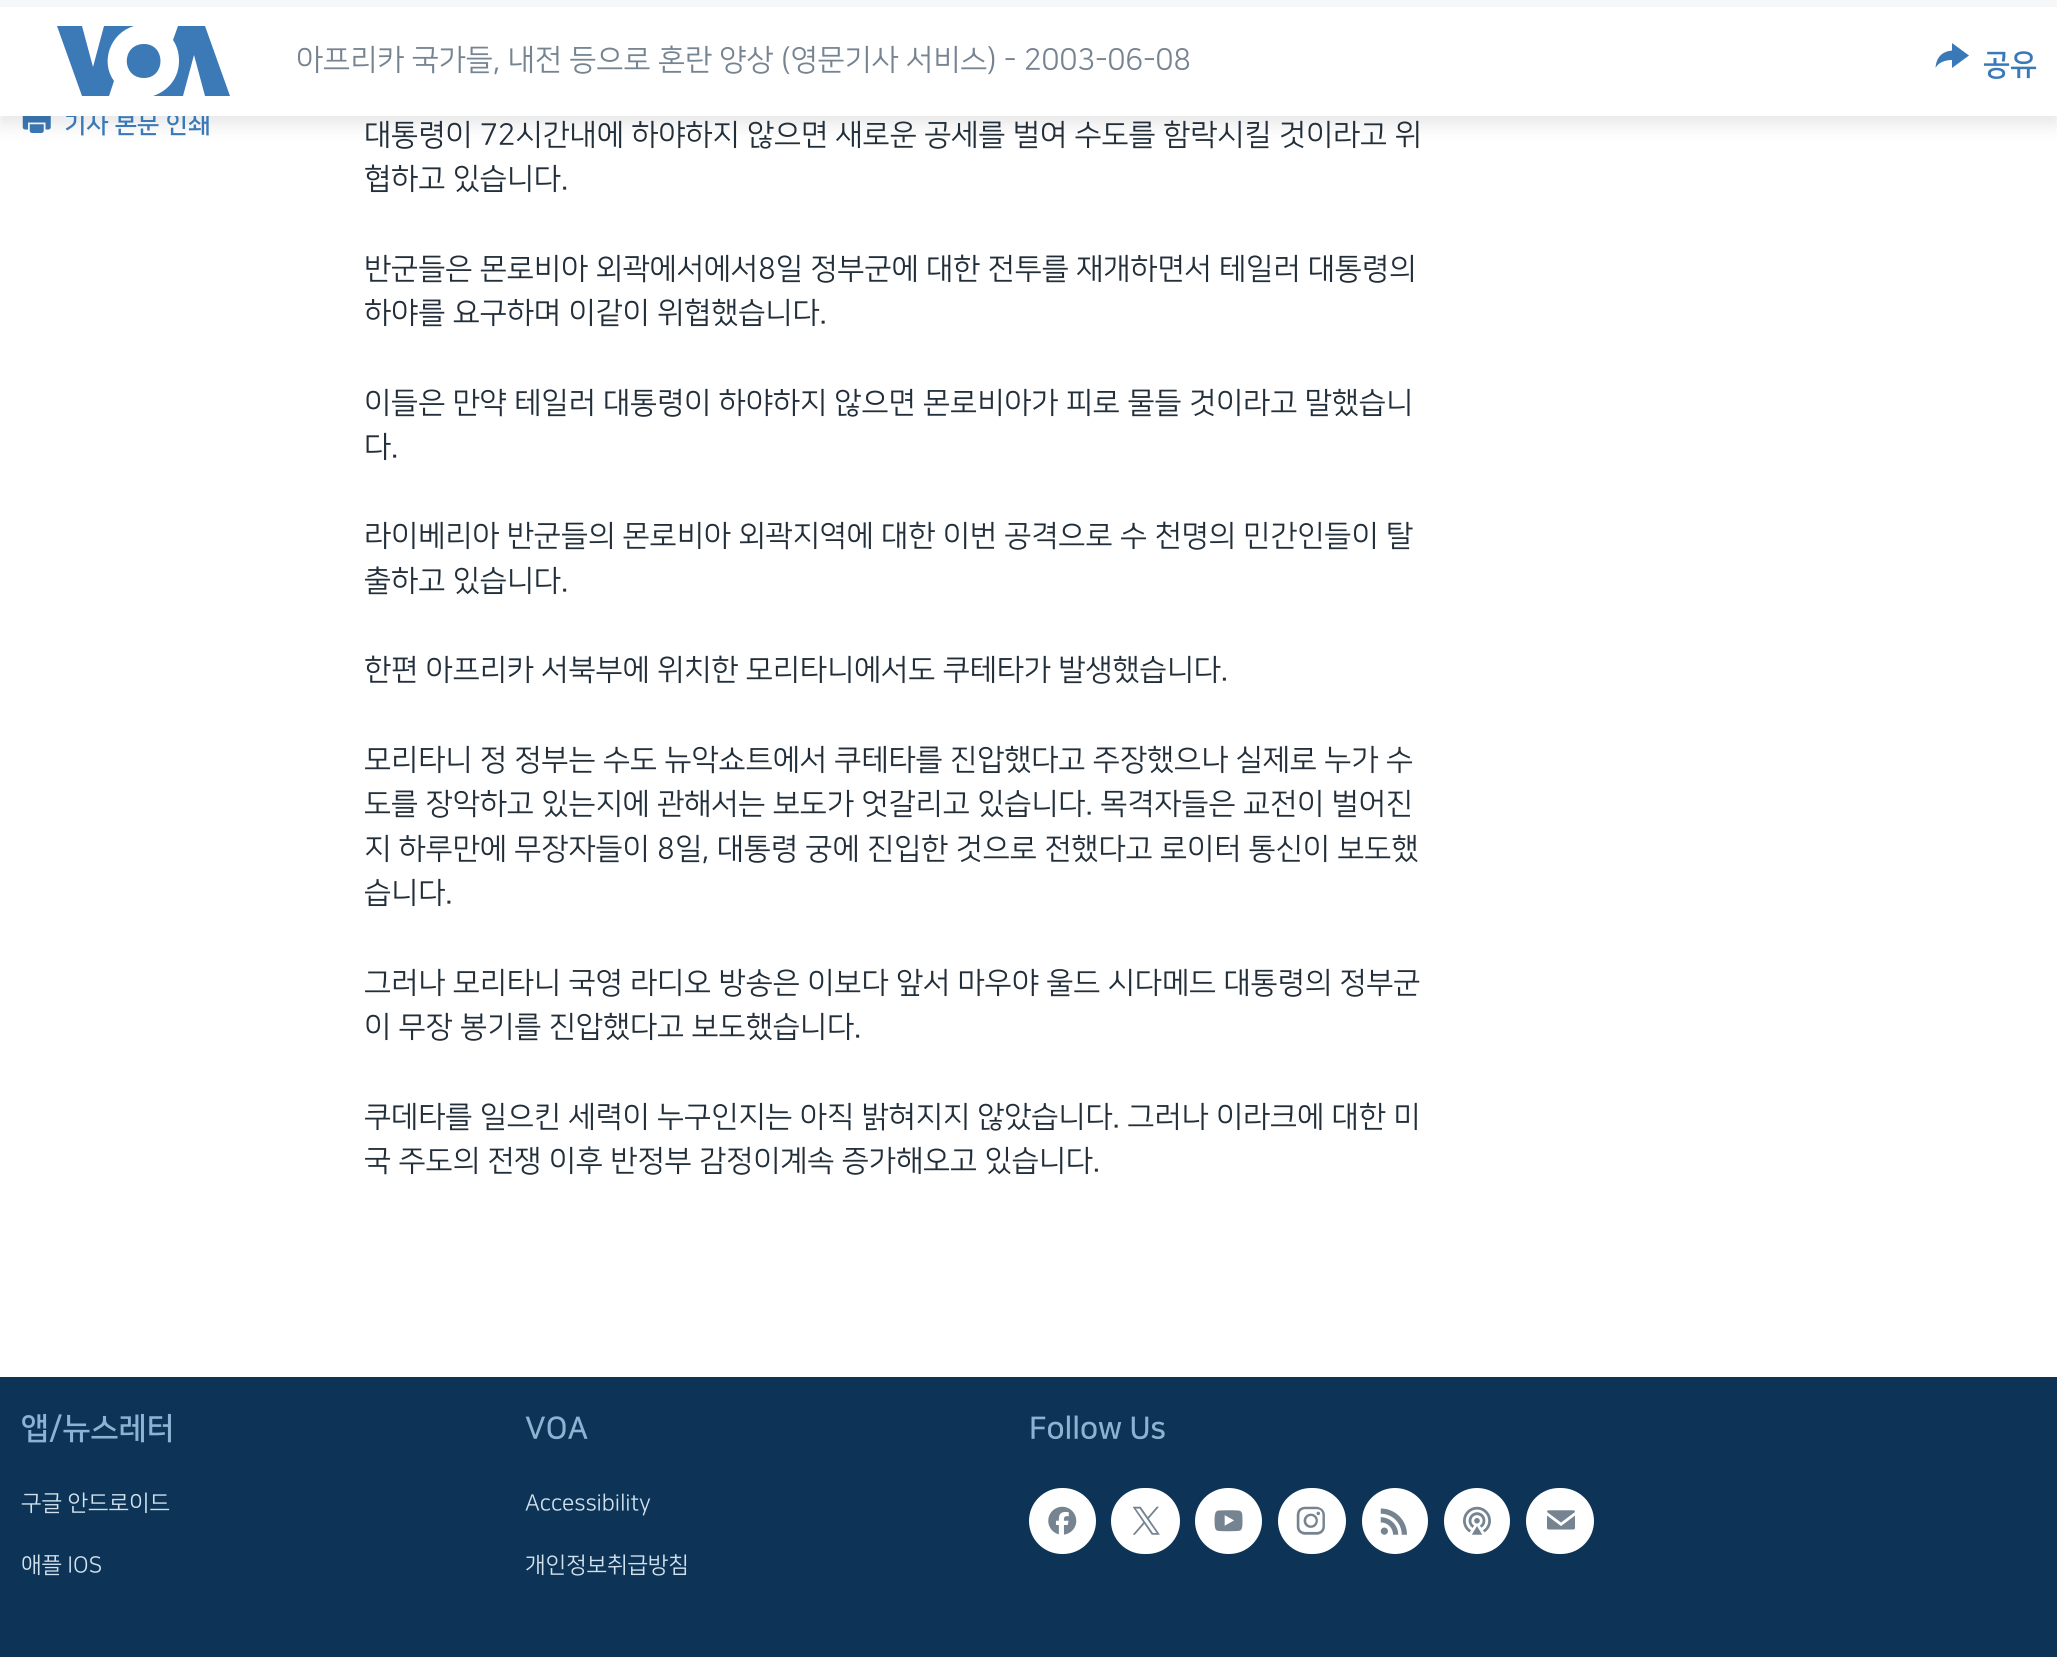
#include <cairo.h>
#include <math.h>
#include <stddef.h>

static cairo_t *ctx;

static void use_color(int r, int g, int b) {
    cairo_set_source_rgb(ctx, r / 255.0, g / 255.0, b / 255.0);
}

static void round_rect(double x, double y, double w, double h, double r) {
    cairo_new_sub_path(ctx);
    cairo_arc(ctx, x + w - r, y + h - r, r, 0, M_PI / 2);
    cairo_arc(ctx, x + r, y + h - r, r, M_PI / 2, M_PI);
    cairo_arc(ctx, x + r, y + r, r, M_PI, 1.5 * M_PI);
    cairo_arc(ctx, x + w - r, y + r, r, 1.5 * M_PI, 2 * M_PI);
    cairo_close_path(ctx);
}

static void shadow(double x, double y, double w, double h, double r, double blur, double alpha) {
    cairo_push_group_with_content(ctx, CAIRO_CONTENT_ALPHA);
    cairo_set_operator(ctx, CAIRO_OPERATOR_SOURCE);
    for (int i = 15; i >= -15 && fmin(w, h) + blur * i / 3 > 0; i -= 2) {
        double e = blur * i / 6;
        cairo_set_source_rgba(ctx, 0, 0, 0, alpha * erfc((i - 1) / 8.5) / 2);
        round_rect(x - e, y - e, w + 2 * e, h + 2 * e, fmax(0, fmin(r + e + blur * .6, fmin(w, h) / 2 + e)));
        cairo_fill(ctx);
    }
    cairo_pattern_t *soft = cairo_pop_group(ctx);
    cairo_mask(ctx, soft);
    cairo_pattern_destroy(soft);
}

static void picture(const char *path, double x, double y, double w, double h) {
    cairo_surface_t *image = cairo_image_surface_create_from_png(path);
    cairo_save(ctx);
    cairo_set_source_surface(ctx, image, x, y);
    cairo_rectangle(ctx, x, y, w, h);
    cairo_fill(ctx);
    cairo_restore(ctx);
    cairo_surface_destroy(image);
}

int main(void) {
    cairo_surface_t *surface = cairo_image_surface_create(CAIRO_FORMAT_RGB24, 2057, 1657);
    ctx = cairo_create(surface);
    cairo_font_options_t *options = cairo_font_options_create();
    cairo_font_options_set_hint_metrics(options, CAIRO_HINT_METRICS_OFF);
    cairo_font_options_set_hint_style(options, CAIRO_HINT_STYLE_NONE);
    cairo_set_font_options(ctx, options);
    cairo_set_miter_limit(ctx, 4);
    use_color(255, 255, 255);
    cairo_paint(ctx);
    picture("img1.png", 22, 116, 29, 17);
    use_color(0, 0, 0);
    shadow(0, 9, 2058, 115, 0, 9, 0.1);
    cairo_select_font_face(ctx, "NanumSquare", CAIRO_FONT_SLANT_NORMAL, CAIRO_FONT_WEIGHT_BOLD);
    cairo_set_font_size(ctx, 24.5);
    use_color(58, 121, 183);
    cairo_move_to(ctx, 64, 132);
    cairo_show_text(ctx, "기사 본문 인쇄");
    use_color(255, 255, 255);
    cairo_rectangle(ctx, 0, 7, 2057, 109);
    cairo_fill(ctx);
    use_color(246, 247, 248);
    cairo_rectangle(ctx, 0, 0, 2057, 7);
    cairo_fill(ctx);
    use_color(59, 121, 183);
    cairo_new_path(ctx);
    cairo_move_to(ctx, 114, 81);
    cairo_line_to(ctx, 109, 96);
    cairo_line_to(ctx, 82, 96);
    cairo_line_to(ctx, 57, 26);
    cairo_line_to(ctx, 82, 26);
    cairo_line_to(ctx, 93, 67);
    cairo_line_to(ctx, 104, 26);
    cairo_line_to(ctx, 134, 26);
    cairo_curve_to(ctx, 110, 33, 100, 62, 114, 81);
    cairo_close_path(ctx);
    cairo_move_to(ctx, 144, 44);
    cairo_curve_to(ctx, 121, 44, 121, 78, 144, 78);
    cairo_curve_to(ctx, 166, 78, 166, 44, 144, 44);
    cairo_close_path(ctx);
    cairo_move_to(ctx, 179, 61);
    cairo_curve_to(ctx, 179, 78, 168, 91, 153, 96);
    cairo_line_to(ctx, 183, 96);
    cairo_line_to(ctx, 194, 55);
    cairo_line_to(ctx, 205, 96);
    cairo_line_to(ctx, 230, 96);
    cairo_line_to(ctx, 205, 26);
    cairo_line_to(ctx, 178, 26);
    cairo_line_to(ctx, 173, 40);
    cairo_curve_to(ctx, 177, 46, 179, 53, 179, 61);
    cairo_close_path(ctx);
    cairo_fill(ctx);
    cairo_select_font_face(ctx, "NanumSquare", CAIRO_FONT_SLANT_NORMAL, CAIRO_FONT_WEIGHT_NORMAL);
    cairo_set_font_size(ctx, 29.75);
    use_color(118, 132, 146);
    cairo_move_to(ctx, 296, 69);
    cairo_show_text(ctx, "아프리카 국가들, 내전 등으로 혼란 양상 (영문기사 서비스) - 2003-06-08");
    use_color(58, 121, 183);
    cairo_new_path(ctx);
    cairo_move_to(ctx, 1935.5, 68);
    cairo_curve_to(ctx, 1936, 58, 1941.5, 51.5, 1952, 50.5);
    cairo_line_to(ctx, 1952, 43);
    cairo_line_to(ctx, 1969, 55.5);
    cairo_line_to(ctx, 1952, 68);
    cairo_line_to(ctx, 1952, 60);
    cairo_curve_to(ctx, 1946, 60, 1938.5, 62, 1935.5, 68);
    cairo_close_path(ctx);
    cairo_fill(ctx);
    cairo_select_font_face(ctx, "NanumSquare", CAIRO_FONT_SLANT_NORMAL, CAIRO_FONT_WEIGHT_BOLD);
    cairo_move_to(ctx, 1983, 74);
    cairo_show_text(ctx, "공유");
    cairo_select_font_face(ctx, "NanumSquare", CAIRO_FONT_SLANT_NORMAL, CAIRO_FONT_WEIGHT_NORMAL);
    use_color(34, 47, 58);
    cairo_move_to(ctx, 364, 144);
    cairo_show_text(ctx, "대통령이 72시간내에 하야하지 않으면 새로운 공세를 벌여 수도를 함락시킬 것이라고 위");
    cairo_move_to(ctx, 364, 188);
    cairo_show_text(ctx, "협하고 있습니다.");
    cairo_move_to(ctx, 364, 278);
    cairo_show_text(ctx, "반군들은 몬로비아 외곽에서에서8일 정부군에 대한 전투를 재개하면서 테일러 대통령의");
    cairo_move_to(ctx, 364, 322);
    cairo_show_text(ctx, "하야를 요구하며 이같이 위협했습니다.");
    cairo_move_to(ctx, 364, 412);
    cairo_show_text(ctx, "이들은 만약 테일러 대통령이 하야하지 않으면 몬로비아가 피로 물들 것이라고 말했습니");
    cairo_move_to(ctx, 364, 456);
    cairo_show_text(ctx, "다.");
    cairo_move_to(ctx, 364, 545);
    cairo_show_text(ctx, "라이베리아 반군들의 몬로비아 외곽지역에 대한 이번 공격으로 수 천명의 민간인들이 탈");
    cairo_move_to(ctx, 364, 590);
    cairo_show_text(ctx, "출하고 있습니다.");
    cairo_move_to(ctx, 364, 679);
    cairo_show_text(ctx, "한편 아프리카 서북부에 위치한 모리타니에서도 쿠테타가 발생했습니다.");
    cairo_move_to(ctx, 364, 769);
    cairo_show_text(ctx, "모리타니 정 정부는 수도 뉴악쇼트에서 쿠테타를 진압했다고 주장했으나 실제로 누가 수");
    cairo_move_to(ctx, 364, 813);
    cairo_show_text(ctx, "도를 장악하고 있는지에 관해서는 보도가 엇갈리고 있습니다. 목격자들은 교전이 벌어진");
    cairo_move_to(ctx, 364, 858);
    cairo_show_text(ctx, "지 하루만에 무장자들이 8일, 대통령 궁에 진입한 것으로 전했다고 로이터 통신이 보도했");
    cairo_move_to(ctx, 364, 902);
    cairo_show_text(ctx, "습니다.");
    cairo_move_to(ctx, 364, 992);
    cairo_show_text(ctx, "그러나 모리타니 국영 라디오 방송은 이보다 앞서 마우야 울드 시다메드 대통령의 정부군");
    cairo_move_to(ctx, 364, 1036);
    cairo_show_text(ctx, "이 무장 봉기를 진압했다고 보도했습니다.");
    cairo_move_to(ctx, 364, 1126);
    cairo_show_text(ctx, "쿠데타를 일으킨 세력이 누구인지는 아직 밝혀지지 않았습니다. 그러나 이라크에 대한 미");
    cairo_move_to(ctx, 364, 1170);
    cairo_show_text(ctx, "국 주도의 전쟁 이후 반정부 감정이계속 증가해오고 있습니다.");
    use_color(13, 52, 86);
    cairo_rectangle(ctx, 0, 1377, 2057, 280);
    cairo_fill(ctx);
    cairo_select_font_face(ctx, "NanumSquare", CAIRO_FONT_SLANT_NORMAL, CAIRO_FONT_WEIGHT_BOLD);
    cairo_set_font_size(ctx, 30.75);
    use_color(141, 179, 212);
    cairo_move_to(ctx, 21, 1438);
    cairo_show_text(ctx, "앱/뉴스레터");
    cairo_select_font_face(ctx, "NanumSquare", CAIRO_FONT_SLANT_NORMAL, CAIRO_FONT_WEIGHT_NORMAL);
    cairo_set_font_size(ctx, 22.5);
    use_color(209, 225, 238);
    cairo_move_to(ctx, 21, 1510);
    cairo_show_text(ctx, "구글 안드로이드");
    cairo_move_to(ctx, 21, 1572);
    cairo_show_text(ctx, "애플 IOS");
    cairo_select_font_face(ctx, "NanumSquare", CAIRO_FONT_SLANT_NORMAL, CAIRO_FONT_WEIGHT_BOLD);
    cairo_set_font_size(ctx, 30.75);
    use_color(141, 179, 212);
    cairo_move_to(ctx, 525, 1438);
    cairo_show_text(ctx, "VOA");
    cairo_select_font_face(ctx, "NanumSquare", CAIRO_FONT_SLANT_NORMAL, CAIRO_FONT_WEIGHT_NORMAL);
    cairo_set_font_size(ctx, 22.5);
    use_color(209, 225, 238);
    cairo_move_to(ctx, 525, 1510);
    cairo_show_text(ctx, "Accessibility");
    cairo_move_to(ctx, 525, 1572);
    cairo_show_text(ctx, "개인정보취급방침");
    cairo_select_font_face(ctx, "NanumSquare", CAIRO_FONT_SLANT_NORMAL, CAIRO_FONT_WEIGHT_BOLD);
    cairo_set_font_size(ctx, 30.75);
    use_color(141, 179, 212);
    cairo_move_to(ctx, 1029, 1438);
    cairo_show_text(ctx, "Follow Us");
    use_color(255, 255, 255);
    round_rect(1029, 1488, 67, 66, 33);
    cairo_fill(ctx);
    picture("img2.png", 1048, 1506, 29, 29);
    round_rect(1111, 1488, 69, 66, 33);
    cairo_fill(ctx);
    picture("img3.png", 1132, 1506, 28, 29);
    round_rect(1195, 1488, 67, 66, 33);
    cairo_fill(ctx);
    picture("img4.png", 1214, 1510, 29, 22);
    round_rect(1278, 1488, 68, 66, 33);
    cairo_fill(ctx);
    picture("img5.png", 1296, 1506, 29, 29);
    cairo_arc(ctx, 1395, 1521, 33, 0, 2 * M_PI);
    cairo_fill(ctx);
    picture("img6.png", 1380, 1508, 27, 27);
    cairo_arc(ctx, 1477, 1521, 33, 0, 2 * M_PI);
    cairo_fill(ctx);
    picture("img7.png", 1463, 1506, 28, 29);
    round_rect(1526, 1488, 68, 66, 33);
    cairo_fill(ctx);
    picture("img8.png", 1547, 1510, 28, 20);
    cairo_surface_write_to_png(surface, "result.png");
    cairo_font_options_destroy(options);
    cairo_destroy(ctx);
    cairo_surface_destroy(surface);
    return 0;
}
